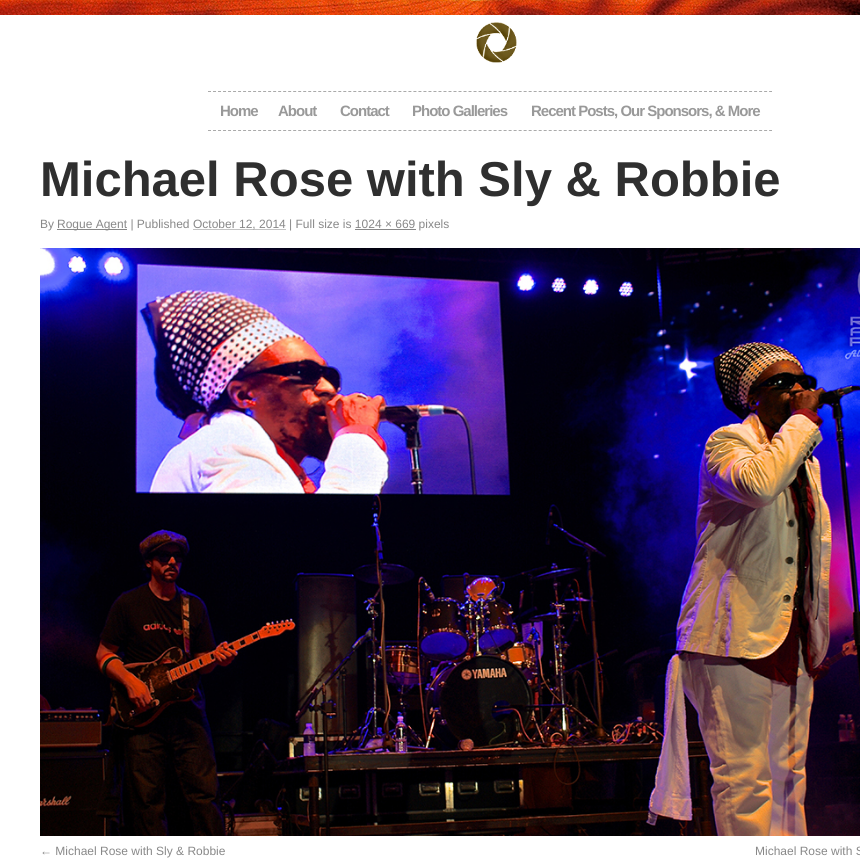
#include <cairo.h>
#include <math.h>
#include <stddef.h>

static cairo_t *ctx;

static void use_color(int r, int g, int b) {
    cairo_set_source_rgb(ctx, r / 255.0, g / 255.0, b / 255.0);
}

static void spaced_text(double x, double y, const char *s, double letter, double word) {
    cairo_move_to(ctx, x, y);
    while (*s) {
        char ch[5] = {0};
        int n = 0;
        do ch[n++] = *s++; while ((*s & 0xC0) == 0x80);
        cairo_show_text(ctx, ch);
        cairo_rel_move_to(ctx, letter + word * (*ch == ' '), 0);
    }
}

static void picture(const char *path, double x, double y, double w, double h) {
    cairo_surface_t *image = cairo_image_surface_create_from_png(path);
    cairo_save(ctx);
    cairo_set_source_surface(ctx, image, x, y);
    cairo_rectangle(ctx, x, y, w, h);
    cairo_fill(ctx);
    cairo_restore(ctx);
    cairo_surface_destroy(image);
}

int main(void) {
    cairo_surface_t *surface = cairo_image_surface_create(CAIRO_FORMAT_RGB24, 860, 864);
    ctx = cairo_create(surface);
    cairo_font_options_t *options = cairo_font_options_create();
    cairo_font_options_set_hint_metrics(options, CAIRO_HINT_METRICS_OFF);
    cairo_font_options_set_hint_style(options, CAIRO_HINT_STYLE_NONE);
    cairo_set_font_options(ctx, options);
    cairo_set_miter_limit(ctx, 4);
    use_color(255, 255, 255);
    cairo_paint(ctx);
    picture("img1.png", 0, 0, 860, 15);
    picture("img2.png", 476, 22, 41, 41);
    cairo_new_path(ctx);
    cairo_move_to(ctx, 208, 91.5);
    cairo_line_to(ctx, 772, 91.5);
    use_color(170, 170, 170);
    cairo_set_line_width(ctx, 1);
    cairo_set_dash(ctx, (double[]){3, 2.01}, 2, 0);
    cairo_stroke(ctx);
    cairo_new_path(ctx);
    cairo_move_to(ctx, 208, 130.5);
    cairo_line_to(ctx, 772, 130.5);
    cairo_stroke(ctx);
    cairo_select_font_face(ctx, "Liberation Sans", CAIRO_FONT_SLANT_NORMAL, CAIRO_FONT_WEIGHT_BOLD);
    cairo_set_font_size(ctx, 15);
    use_color(153, 153, 153);
    spaced_text(220, 116, "Home", -1, 0);
    spaced_text(278, 116, "About", -1, 0);
    spaced_text(340, 116, "Contact", -1, 0);
    spaced_text(412, 116, "Photo Galleries", -1, 0);
    spaced_text(531, 116, "Recent Posts, Our Sponsors, & More", -1, 0);
    cairo_set_font_size(ctx, 49);
    use_color(47, 47, 47);
    cairo_move_to(ctx, 40, 196);
    cairo_show_text(ctx, "Michael Rose with Sly & Robbie");
    cairo_select_font_face(ctx, "Liberation Sans", CAIRO_FONT_SLANT_NORMAL, CAIRO_FONT_WEIGHT_NORMAL);
    cairo_set_font_size(ctx, 12);
    use_color(136, 136, 136);
    cairo_move_to(ctx, 40, 228);
    cairo_show_text(ctx, "By");
    cairo_rectangle(ctx, 57, 229, 70, 1);
    cairo_fill(ctx);
    cairo_move_to(ctx, 57, 228);
    cairo_show_text(ctx, "Rogue Agent | Published");
    cairo_new_path(ctx);
    cairo_move_to(ctx, 193.5, 229.5);
    cairo_line_to(ctx, 286, 229.5);
    cairo_set_dash(ctx, (double[]){1, 1}, 2, 0);
    cairo_stroke(ctx);
    cairo_move_to(ctx, 193, 228);
    cairo_show_text(ctx, "October 12, 2014 | Full size is 1024 × 669 pixels");
    cairo_rectangle(ctx, 355, 229, 61, 1);
    cairo_fill(ctx);
    picture("img3.png", 40, 248, 820, 588);
    cairo_move_to(ctx, 40, 855);
    cairo_show_text(ctx, "← Michael Rose with Sly & Robbie");
    cairo_move_to(ctx, 755, 855);
    cairo_show_text(ctx, "Michael Rose with S");
    cairo_surface_write_to_png(surface, "result.png");
    cairo_font_options_destroy(options);
    cairo_destroy(ctx);
    cairo_surface_destroy(surface);
    return 0;
}
